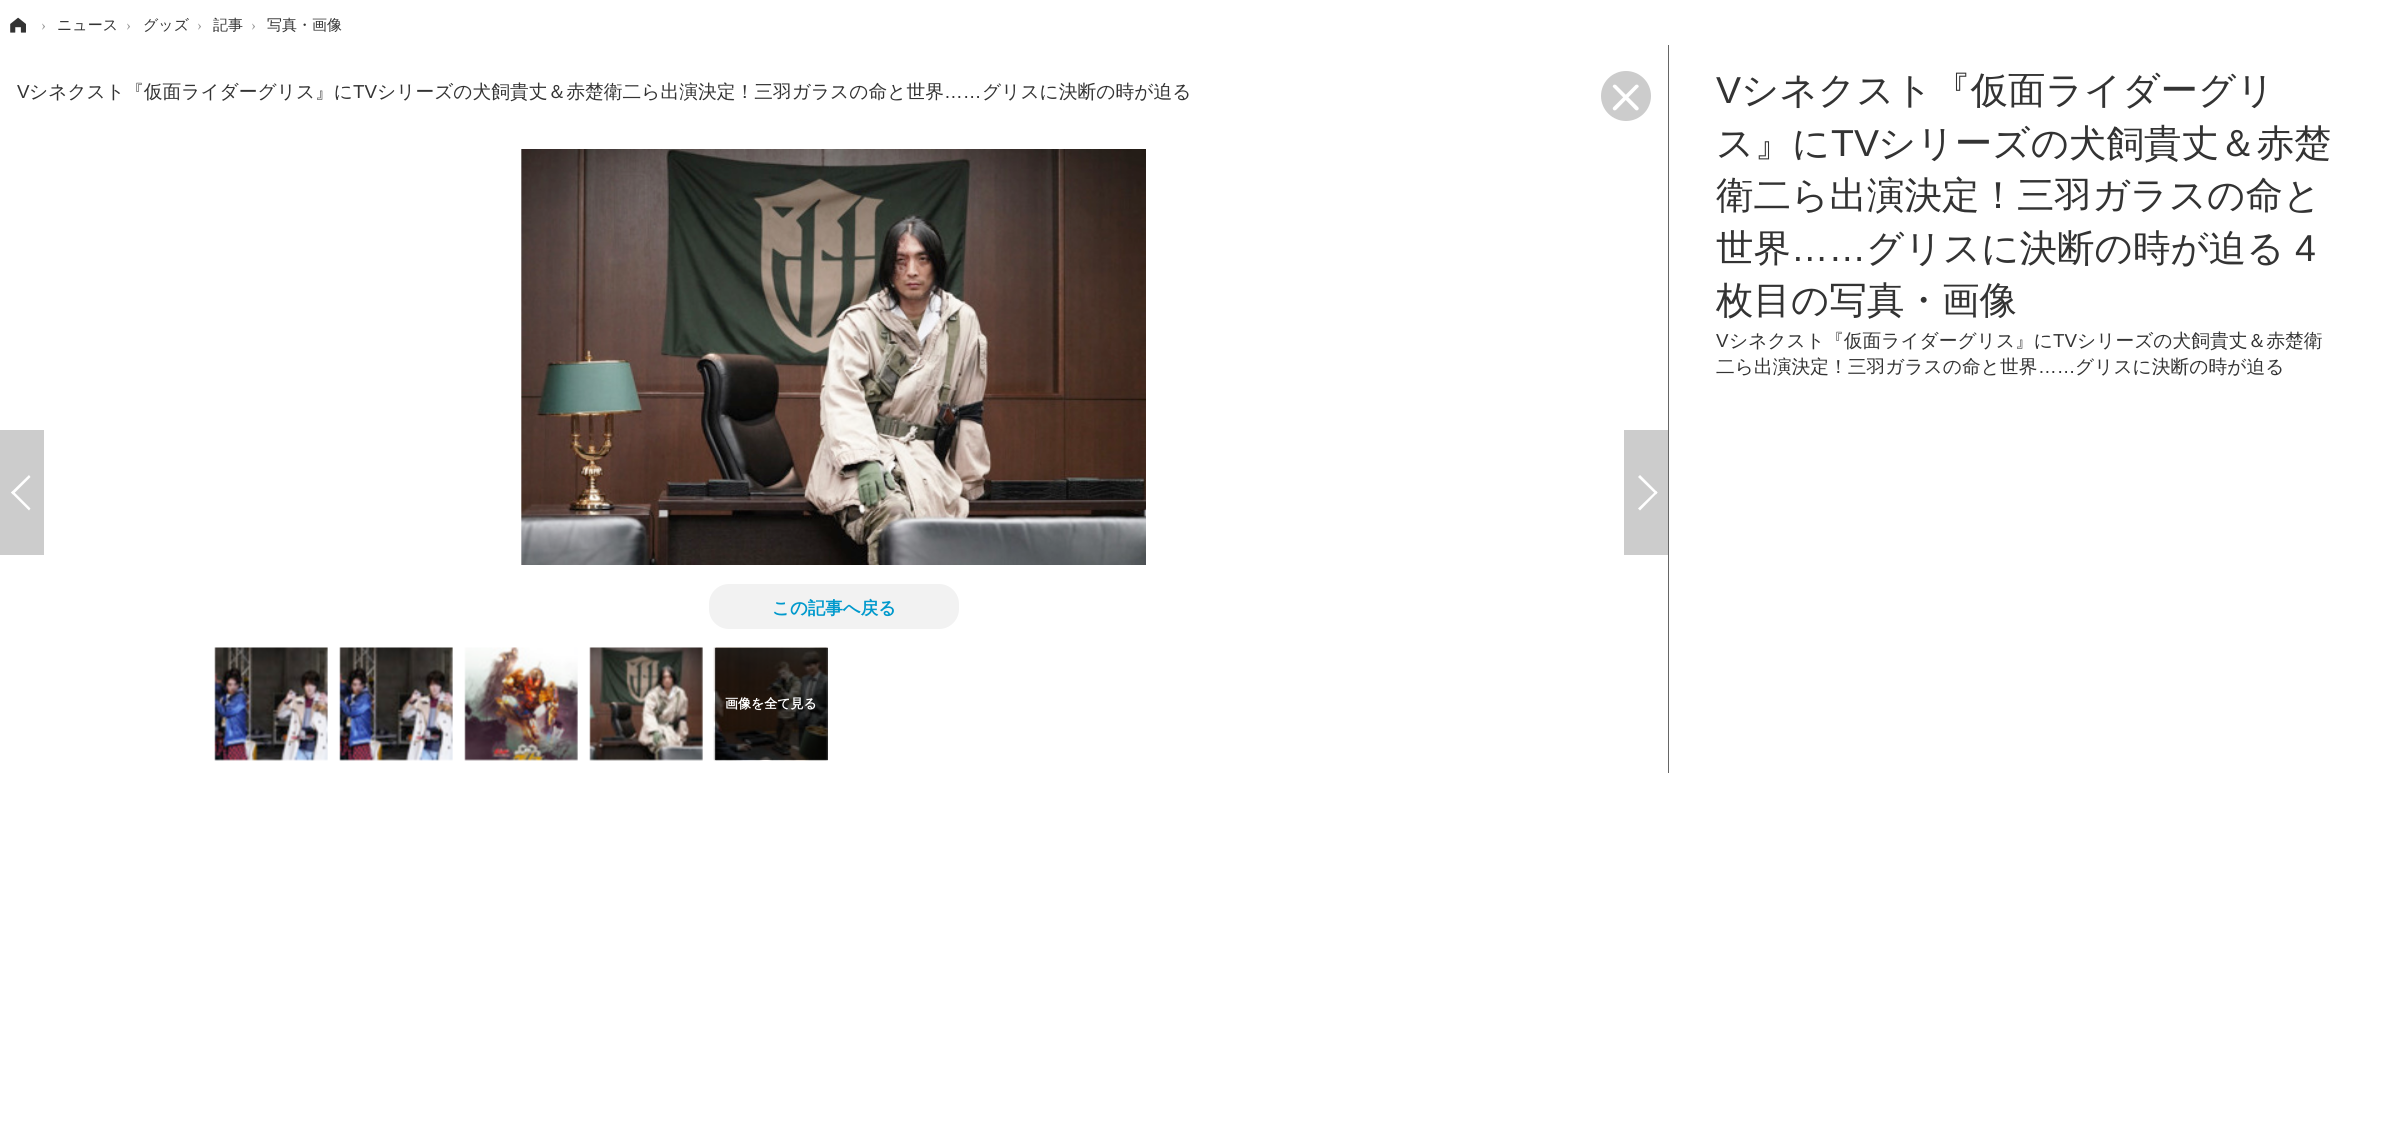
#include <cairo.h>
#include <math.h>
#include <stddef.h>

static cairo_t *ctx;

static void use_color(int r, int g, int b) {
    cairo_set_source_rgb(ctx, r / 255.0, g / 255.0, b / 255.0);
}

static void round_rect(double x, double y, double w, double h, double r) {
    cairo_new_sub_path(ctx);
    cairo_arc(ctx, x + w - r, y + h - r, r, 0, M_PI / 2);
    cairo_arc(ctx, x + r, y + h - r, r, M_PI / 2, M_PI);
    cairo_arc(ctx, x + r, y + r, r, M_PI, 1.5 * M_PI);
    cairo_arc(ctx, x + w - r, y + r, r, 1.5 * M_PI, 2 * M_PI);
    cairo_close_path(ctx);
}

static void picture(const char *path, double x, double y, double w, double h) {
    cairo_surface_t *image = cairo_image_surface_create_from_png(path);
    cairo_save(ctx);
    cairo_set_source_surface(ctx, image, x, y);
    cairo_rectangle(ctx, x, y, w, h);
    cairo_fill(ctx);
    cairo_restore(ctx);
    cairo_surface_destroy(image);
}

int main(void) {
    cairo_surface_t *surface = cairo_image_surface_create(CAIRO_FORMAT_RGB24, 2383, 1134);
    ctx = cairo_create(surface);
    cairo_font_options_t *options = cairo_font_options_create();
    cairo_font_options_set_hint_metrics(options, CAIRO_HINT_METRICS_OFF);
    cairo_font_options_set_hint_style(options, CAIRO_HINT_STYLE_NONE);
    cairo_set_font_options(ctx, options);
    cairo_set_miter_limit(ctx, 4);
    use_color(255, 255, 255);
    cairo_paint(ctx);
    use_color(89, 89, 89);
    cairo_rectangle(ctx, 715, 648, 113, 112);
    cairo_fill(ctx);
    picture("img1.png", 10, 17, 16, 16);
    cairo_select_font_face(ctx, "Liberation Serif", CAIRO_FONT_SLANT_NORMAL, CAIRO_FONT_WEIGHT_NORMAL);
    cairo_set_font_size(ctx, 15);
    use_color(153, 153, 153);
    cairo_move_to(ctx, 41, 30);
    cairo_show_text(ctx, "›");
    cairo_select_font_face(ctx, "WenQuanYi Zen Hei Medium", CAIRO_FONT_SLANT_NORMAL, CAIRO_FONT_WEIGHT_NORMAL);
    use_color(51, 51, 51);
    cairo_move_to(ctx, 57, 30);
    cairo_show_text(ctx, "ニュース");
    cairo_select_font_face(ctx, "Liberation Serif", CAIRO_FONT_SLANT_NORMAL, CAIRO_FONT_WEIGHT_NORMAL);
    use_color(153, 153, 153);
    cairo_move_to(ctx, 126, 30);
    cairo_show_text(ctx, "›");
    cairo_select_font_face(ctx, "WenQuanYi Zen Hei Medium", CAIRO_FONT_SLANT_NORMAL, CAIRO_FONT_WEIGHT_NORMAL);
    use_color(51, 51, 51);
    cairo_move_to(ctx, 143, 30);
    cairo_show_text(ctx, "グッズ");
    cairo_select_font_face(ctx, "Liberation Serif", CAIRO_FONT_SLANT_NORMAL, CAIRO_FONT_WEIGHT_NORMAL);
    use_color(153, 153, 153);
    cairo_move_to(ctx, 197, 30);
    cairo_show_text(ctx, "›");
    cairo_select_font_face(ctx, "WenQuanYi Zen Hei Medium", CAIRO_FONT_SLANT_NORMAL, CAIRO_FONT_WEIGHT_NORMAL);
    use_color(51, 51, 51);
    cairo_move_to(ctx, 213, 30);
    cairo_show_text(ctx, "記事");
    cairo_select_font_face(ctx, "Liberation Serif", CAIRO_FONT_SLANT_NORMAL, CAIRO_FONT_WEIGHT_NORMAL);
    use_color(153, 153, 153);
    cairo_move_to(ctx, 251, 30);
    cairo_show_text(ctx, "›");
    cairo_select_font_face(ctx, "WenQuanYi Zen Hei Medium", CAIRO_FONT_SLANT_NORMAL, CAIRO_FONT_WEIGHT_NORMAL);
    use_color(51, 51, 51);
    cairo_move_to(ctx, 267, 30);
    cairo_show_text(ctx, "写真・画像");
    use_color(102, 102, 102);
    cairo_rectangle(ctx, 1668, 45, 1, 728);
    cairo_fill(ctx);
    cairo_select_font_face(ctx, "Liberation Sans", CAIRO_FONT_SLANT_NORMAL, CAIRO_FONT_WEIGHT_NORMAL);
    cairo_set_font_size(ctx, 18.75);
    use_color(51, 51, 51);
    cairo_move_to(ctx, 17, 98);
    cairo_show_text(ctx, "V");
    cairo_select_font_face(ctx, "WenQuanYi Zen Hei Medium", CAIRO_FONT_SLANT_NORMAL, CAIRO_FONT_WEIGHT_NORMAL);
    cairo_move_to(ctx, 29, 98);
    cairo_show_text(ctx, "シネクスト『仮面ライダーグリス』に");
    cairo_select_font_face(ctx, "Liberation Sans", CAIRO_FONT_SLANT_NORMAL, CAIRO_FONT_WEIGHT_NORMAL);
    cairo_move_to(ctx, 353, 98);
    cairo_show_text(ctx, "TV");
    cairo_select_font_face(ctx, "WenQuanYi Zen Hei Medium", CAIRO_FONT_SLANT_NORMAL, CAIRO_FONT_WEIGHT_NORMAL);
    cairo_move_to(ctx, 377, 98);
    cairo_show_text(ctx, "シリーズの犬飼貴丈＆赤楚衛二ら出演決定！三羽ガラスの命と世界");
    cairo_select_font_face(ctx, "Liberation Sans", CAIRO_FONT_SLANT_NORMAL, CAIRO_FONT_WEIGHT_NORMAL);
    cairo_move_to(ctx, 944, 98);
    cairo_show_text(ctx, "……");
    cairo_select_font_face(ctx, "WenQuanYi Zen Hei Medium", CAIRO_FONT_SLANT_NORMAL, CAIRO_FONT_WEIGHT_NORMAL);
    cairo_move_to(ctx, 982, 98);
    cairo_show_text(ctx, "グリスに決断の時が迫る");
    use_color(204, 204, 204);
    cairo_new_path(ctx);
    cairo_arc(ctx, 1626, 96, 25, 0, 2 * M_PI);
    cairo_fill(ctx);
    use_color(255, 255, 255);
    cairo_new_path(ctx);
    cairo_move_to(ctx, 1613.5, 107);
    cairo_line_to(ctx, 1635.5, 85);
    cairo_curve_to(ctx, 1636, 84.5, 1637.5, 84.5, 1638, 85);
    cairo_curve_to(ctx, 1639, 86, 1639, 87, 1638, 87.5);
    cairo_line_to(ctx, 1616, 110);
    cairo_curve_to(ctx, 1615, 110.5, 1614, 110.5, 1613.5, 110);
    cairo_curve_to(ctx, 1612.5, 109, 1612.5, 108, 1613.5, 107);
    cairo_close_path(ctx);
    cairo_fill(ctx);
    cairo_new_path(ctx);
    cairo_move_to(ctx, 1616, 85);
    cairo_line_to(ctx, 1638, 107);
    cairo_curve_to(ctx, 1639, 108, 1639, 109, 1638, 110);
    cairo_curve_to(ctx, 1637.5, 110.5, 1636, 110.5, 1635.5, 110);
    cairo_line_to(ctx, 1613.5, 87.5);
    cairo_curve_to(ctx, 1612.5, 87, 1612.5, 86, 1613.5, 85);
    cairo_curve_to(ctx, 1614, 84.5, 1615, 84.5, 1616, 85);
    cairo_close_path(ctx);
    cairo_fill(ctx);
    picture("img2.png", 521, 149, 625, 416);
    use_color(204, 204, 204);
    cairo_rectangle(ctx, 0, 430, 44, 125);
    cairo_fill(ctx);
    use_color(255, 255, 255);
    cairo_new_path(ctx);
    cairo_move_to(ctx, 29, 510.5);
    cairo_line_to(ctx, 11, 492.5);
    cairo_line_to(ctx, 13, 491);
    cairo_line_to(ctx, 30.5, 508.5);
    cairo_close_path(ctx);
    cairo_fill(ctx);
    cairo_new_path(ctx);
    cairo_move_to(ctx, 13, 494.5);
    cairo_line_to(ctx, 11, 492.5);
    cairo_line_to(ctx, 29, 475);
    cairo_line_to(ctx, 30.5, 477);
    cairo_close_path(ctx);
    cairo_fill(ctx);
    use_color(204, 204, 204);
    cairo_rectangle(ctx, 1624, 430, 44, 125);
    cairo_fill(ctx);
    use_color(255, 255, 255);
    cairo_new_path(ctx);
    cairo_move_to(ctx, 1640, 475);
    cairo_line_to(ctx, 1657.5, 492.5);
    cairo_line_to(ctx, 1656, 494.5);
    cairo_line_to(ctx, 1638, 477);
    cairo_close_path(ctx);
    cairo_fill(ctx);
    cairo_new_path(ctx);
    cairo_move_to(ctx, 1656, 491);
    cairo_line_to(ctx, 1657.5, 492.5);
    cairo_line_to(ctx, 1640, 510.5);
    cairo_line_to(ctx, 1638, 508.5);
    cairo_close_path(ctx);
    cairo_fill(ctx);
    use_color(242, 242, 242);
    round_rect(710.5, 585.5, 247, 42, 18.5);
    cairo_fill_preserve(ctx);
    cairo_set_line_width(ctx, 3);
    cairo_stroke(ctx);
    cairo_select_font_face(ctx, "WenQuanYi Zen Hei", CAIRO_FONT_SLANT_NORMAL, CAIRO_FONT_WEIGHT_BOLD);
    cairo_set_font_size(ctx, 17.5);
    use_color(0, 153, 204);
    cairo_move_to(ctx, 772, 614);
    cairo_show_text(ctx, "この記事へ戻る");
    picture("img3.png", 214, 647, 114, 114);
    picture("img4.png", 339, 647, 114, 114);
    picture("img5.png", 464, 647, 114, 114);
    picture("img6.png", 589, 647, 114, 114);
    picture("img7.png", 713, 647, 115, 114);
    cairo_set_font_size(ctx, 13);
    use_color(255, 255, 255);
    cairo_move_to(ctx, 725, 708);
    cairo_show_text(ctx, "画像を全て見る");
    cairo_select_font_face(ctx, "Liberation Sans", CAIRO_FONT_SLANT_NORMAL, CAIRO_FONT_WEIGHT_NORMAL);
    cairo_set_font_size(ctx, 37.5);
    use_color(51, 51, 51);
    cairo_move_to(ctx, 1716, 103);
    cairo_show_text(ctx, "V");
    cairo_select_font_face(ctx, "WenQuanYi Zen Hei Medium", CAIRO_FONT_SLANT_NORMAL, CAIRO_FONT_WEIGHT_NORMAL);
    cairo_move_to(ctx, 1741, 103);
    cairo_show_text(ctx, "シネクスト『仮面ライダーグリ");
    cairo_move_to(ctx, 1716, 156);
    cairo_show_text(ctx, "ス』に");
    cairo_select_font_face(ctx, "Liberation Sans", CAIRO_FONT_SLANT_NORMAL, CAIRO_FONT_WEIGHT_NORMAL);
    cairo_move_to(ctx, 1831, 156);
    cairo_show_text(ctx, "TV");
    cairo_select_font_face(ctx, "WenQuanYi Zen Hei Medium", CAIRO_FONT_SLANT_NORMAL, CAIRO_FONT_WEIGHT_NORMAL);
    cairo_move_to(ctx, 1878, 156);
    cairo_show_text(ctx, "シリーズの犬飼貴丈＆赤楚");
    cairo_move_to(ctx, 1716, 208);
    cairo_show_text(ctx, "衛二ら出演決定！三羽ガラスの命と");
    cairo_move_to(ctx, 1716, 261);
    cairo_show_text(ctx, "世界");
    cairo_select_font_face(ctx, "Liberation Sans", CAIRO_FONT_SLANT_NORMAL, CAIRO_FONT_WEIGHT_NORMAL);
    cairo_move_to(ctx, 1791, 261);
    cairo_show_text(ctx, "……");
    cairo_select_font_face(ctx, "WenQuanYi Zen Hei Medium", CAIRO_FONT_SLANT_NORMAL, CAIRO_FONT_WEIGHT_NORMAL);
    cairo_move_to(ctx, 1866, 261);
    cairo_show_text(ctx, "グリスに決断の時が迫る");
    cairo_select_font_face(ctx, "Liberation Sans", CAIRO_FONT_SLANT_NORMAL, CAIRO_FONT_WEIGHT_NORMAL);
    cairo_move_to(ctx, 2295, 261);
    cairo_show_text(ctx, "4");
    cairo_select_font_face(ctx, "WenQuanYi Zen Hei Medium", CAIRO_FONT_SLANT_NORMAL, CAIRO_FONT_WEIGHT_NORMAL);
    cairo_move_to(ctx, 1716, 313);
    cairo_show_text(ctx, "枚目の写真・画像");
    cairo_select_font_face(ctx, "Liberation Sans", CAIRO_FONT_SLANT_NORMAL, CAIRO_FONT_WEIGHT_NORMAL);
    cairo_set_font_size(ctx, 18.75);
    cairo_move_to(ctx, 1716, 347);
    cairo_show_text(ctx, "V");
    cairo_select_font_face(ctx, "WenQuanYi Zen Hei Medium", CAIRO_FONT_SLANT_NORMAL, CAIRO_FONT_WEIGHT_NORMAL);
    cairo_move_to(ctx, 1729, 347);
    cairo_show_text(ctx, "シネクスト『仮面ライダーグリス』に");
    cairo_select_font_face(ctx, "Liberation Sans", CAIRO_FONT_SLANT_NORMAL, CAIRO_FONT_WEIGHT_NORMAL);
    cairo_move_to(ctx, 2053, 347);
    cairo_show_text(ctx, "TV");
    cairo_select_font_face(ctx, "WenQuanYi Zen Hei Medium", CAIRO_FONT_SLANT_NORMAL, CAIRO_FONT_WEIGHT_NORMAL);
    cairo_move_to(ctx, 2077, 347);
    cairo_show_text(ctx, "シリーズの犬飼貴丈＆赤楚衛");
    cairo_move_to(ctx, 1716, 373);
    cairo_show_text(ctx, "二ら出演決定！三羽ガラスの命と世界");
    cairo_select_font_face(ctx, "Liberation Sans", CAIRO_FONT_SLANT_NORMAL, CAIRO_FONT_WEIGHT_NORMAL);
    cairo_move_to(ctx, 2038, 373);
    cairo_show_text(ctx, "……");
    cairo_select_font_face(ctx, "WenQuanYi Zen Hei Medium", CAIRO_FONT_SLANT_NORMAL, CAIRO_FONT_WEIGHT_NORMAL);
    cairo_move_to(ctx, 2075, 373);
    cairo_show_text(ctx, "グリスに決断の時が迫る");
    cairo_surface_write_to_png(surface, "result.png");
    cairo_font_options_destroy(options);
    cairo_destroy(ctx);
    cairo_surface_destroy(surface);
    return 0;
}
